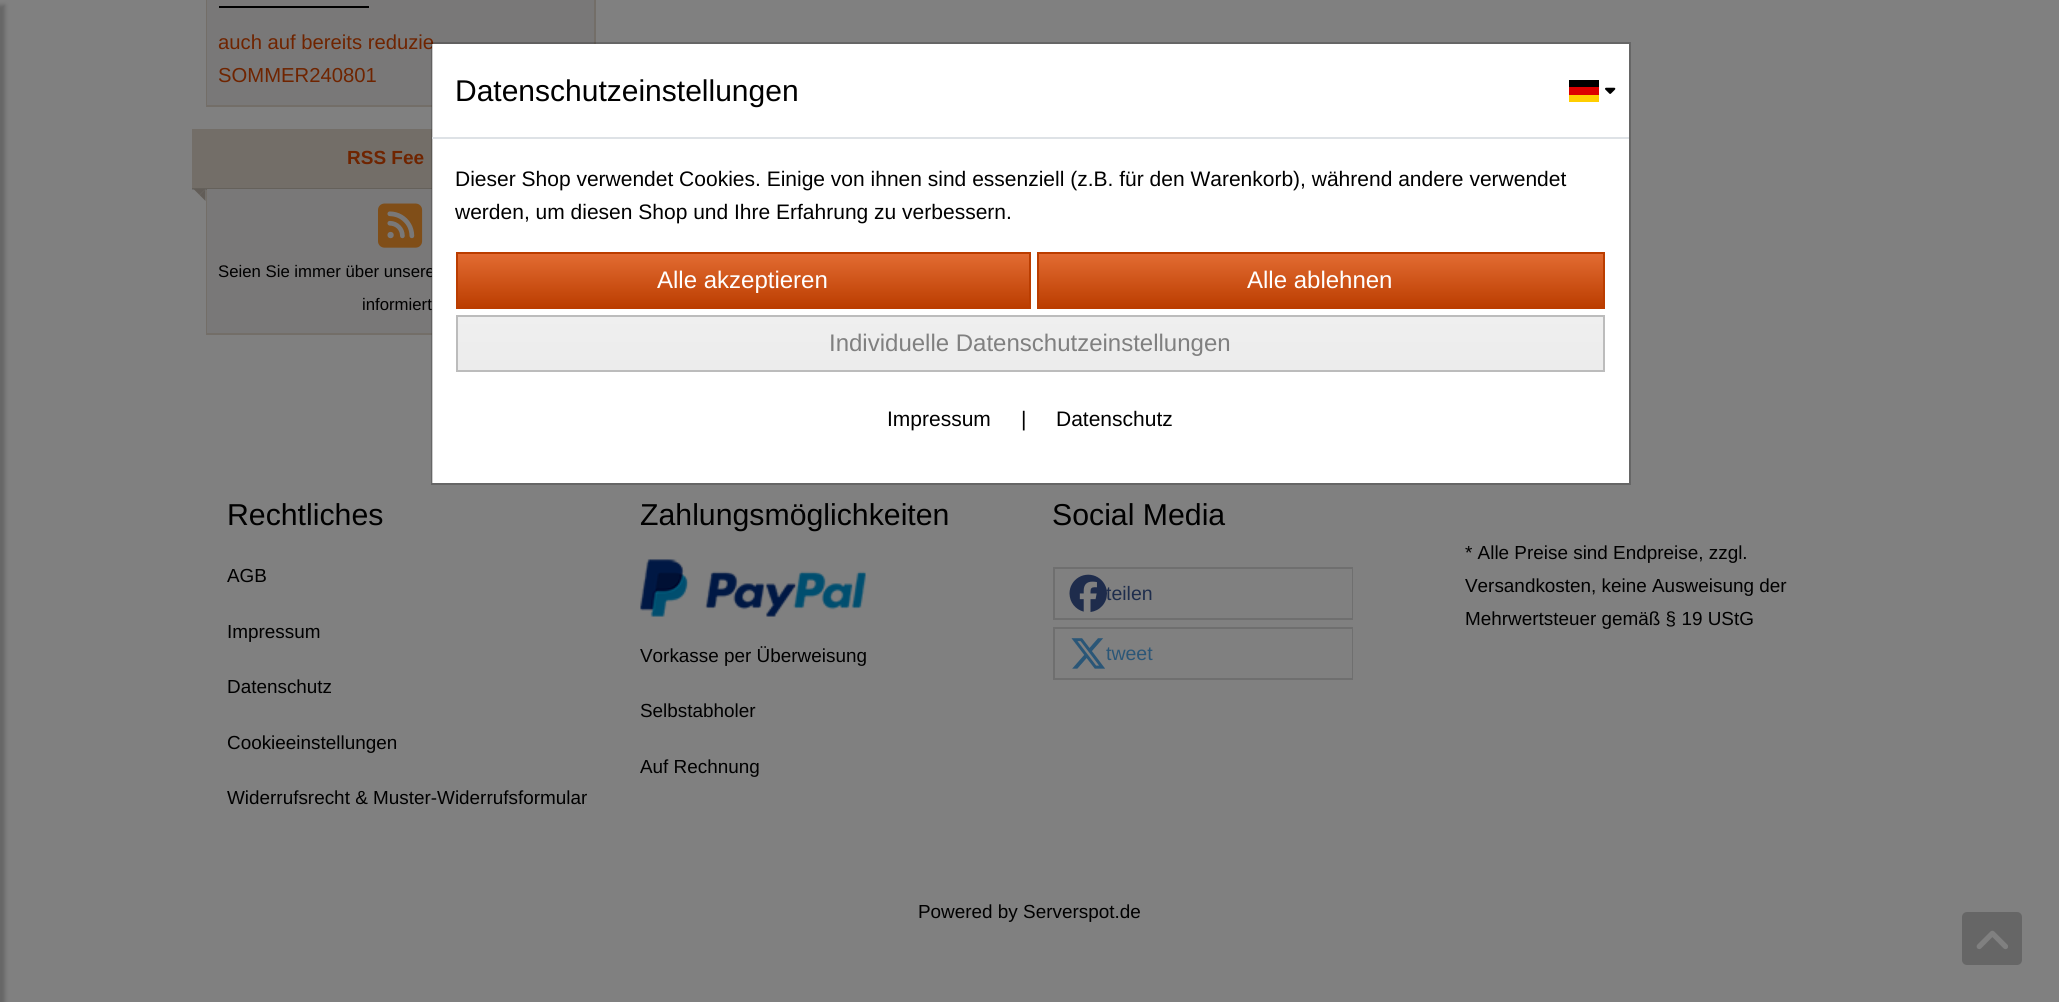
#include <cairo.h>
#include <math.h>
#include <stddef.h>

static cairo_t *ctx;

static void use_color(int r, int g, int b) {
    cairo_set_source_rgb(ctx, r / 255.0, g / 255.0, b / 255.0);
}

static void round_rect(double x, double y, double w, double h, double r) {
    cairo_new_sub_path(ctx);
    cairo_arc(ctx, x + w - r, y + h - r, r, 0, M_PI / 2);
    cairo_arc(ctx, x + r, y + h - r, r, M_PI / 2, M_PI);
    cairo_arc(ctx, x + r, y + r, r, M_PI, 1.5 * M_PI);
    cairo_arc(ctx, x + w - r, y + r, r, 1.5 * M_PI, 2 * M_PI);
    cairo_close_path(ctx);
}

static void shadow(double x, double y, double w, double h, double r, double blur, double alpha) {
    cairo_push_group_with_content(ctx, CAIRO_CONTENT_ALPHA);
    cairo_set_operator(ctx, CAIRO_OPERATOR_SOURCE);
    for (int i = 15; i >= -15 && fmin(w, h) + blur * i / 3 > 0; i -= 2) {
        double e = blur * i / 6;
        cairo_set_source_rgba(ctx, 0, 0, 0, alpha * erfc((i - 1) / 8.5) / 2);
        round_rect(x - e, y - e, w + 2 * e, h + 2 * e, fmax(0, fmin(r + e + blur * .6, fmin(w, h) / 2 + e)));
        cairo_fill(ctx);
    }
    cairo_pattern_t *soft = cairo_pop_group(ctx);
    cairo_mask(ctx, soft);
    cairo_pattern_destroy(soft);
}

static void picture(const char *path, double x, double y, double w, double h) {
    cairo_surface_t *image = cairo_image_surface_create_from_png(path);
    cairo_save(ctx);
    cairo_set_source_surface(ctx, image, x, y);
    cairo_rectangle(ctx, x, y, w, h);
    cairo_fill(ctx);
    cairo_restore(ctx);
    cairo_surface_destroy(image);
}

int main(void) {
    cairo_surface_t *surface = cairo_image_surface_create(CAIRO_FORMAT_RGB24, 2059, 1002);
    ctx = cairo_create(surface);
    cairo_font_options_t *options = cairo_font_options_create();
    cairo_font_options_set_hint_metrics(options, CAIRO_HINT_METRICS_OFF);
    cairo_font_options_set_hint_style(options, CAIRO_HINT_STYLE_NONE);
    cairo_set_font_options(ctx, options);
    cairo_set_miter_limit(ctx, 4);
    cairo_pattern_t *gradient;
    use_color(128, 128, 128);
    cairo_paint(ctx);
    use_color(112, 112, 112);
    cairo_rectangle(ctx, 192, 189, 14, 1);
    cairo_fill(ctx);
    use_color(0, 0, 0);
    shadow(-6, 5, 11, 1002, 0, 2, 0.2);
    use_color(115, 110, 104);
    cairo_rectangle(ctx, 594, 0, 2, 44);
    cairo_fill(ctx);
    cairo_rectangle(ctx, 206, 105, 226, 2);
    cairo_fill(ctx);
    cairo_rectangle(ctx, 206, 0, 2, 107);
    cairo_fill(ctx);
    use_color(121, 120, 120);
    cairo_rectangle(ctx, 207, 0, 387, 105);
    cairo_fill(ctx);
    use_color(0, 0, 0);
    cairo_rectangle(ctx, 219, 6, 150, 2);
    cairo_fill(ctx);
    cairo_select_font_face(ctx, "Liberation Sans", CAIRO_FONT_SLANT_NORMAL, CAIRO_FONT_WEIGHT_NORMAL);
    cairo_set_font_size(ctx, 20.25);
    use_color(111, 36, 0);
    cairo_move_to(ctx, 218, 49);
    cairo_show_text(ctx, "auch auf bereits reduzie");
    cairo_move_to(ctx, 218, 82);
    cairo_show_text(ctx, "SOMMER240801");
    use_color(115, 110, 104);
    cairo_rectangle(ctx, 206, 333, 226, 2);
    cairo_fill(ctx);
    cairo_rectangle(ctx, 206, 190, 2, 145);
    cairo_fill(ctx);
    use_color(101, 97, 91);
    cairo_rectangle(ctx, 206, 189, 2, 1);
    cairo_fill(ctx);
    use_color(115, 110, 104);
    cairo_rectangle(ctx, 192, 129, 240, 59);
    cairo_fill(ctx);
    use_color(101, 97, 91);
    cairo_rectangle(ctx, 192, 188, 240, 1);
    cairo_fill(ctx);
    cairo_select_font_face(ctx, "Liberation Sans", CAIRO_FONT_SLANT_NORMAL, CAIRO_FONT_WEIGHT_BOLD);
    cairo_set_font_size(ctx, 19);
    use_color(111, 36, 0);
    cairo_move_to(ctx, 347, 164);
    cairo_show_text(ctx, "RSS Fee");
    use_color(121, 120, 120);
    cairo_rectangle(ctx, 207, 189, 225, 144);
    cairo_fill(ctx);
    use_color(98, 93, 88);
    cairo_new_path(ctx);
    cairo_move_to(ctx, 193.5, 189);
    cairo_line_to(ctx, 205.5, 189);
    cairo_line_to(ctx, 199.5, 195);
    cairo_close_path(ctx);
    cairo_fill(ctx);
    cairo_new_path(ctx);
    cairo_move_to(ctx, 205.5, 189);
    cairo_line_to(ctx, 205.5, 201);
    cairo_line_to(ctx, 199.5, 195);
    cairo_close_path(ctx);
    cairo_fill(ctx);
    picture("img1.png", 378, 203, 45, 45);
    cairo_select_font_face(ctx, "Liberation Sans", CAIRO_FONT_SLANT_NORMAL, CAIRO_FONT_WEIGHT_NORMAL);
    cairo_set_font_size(ctx, 16.75);
    use_color(0, 0, 0);
    cairo_move_to(ctx, 218, 277);
    cairo_show_text(ctx, "Seien Sie immer über unsere");
    cairo_move_to(ctx, 362, 310);
    cairo_show_text(ctx, "informiert");
    cairo_set_font_size(ctx, 30.25);
    cairo_move_to(ctx, 227, 525);
    cairo_show_text(ctx, "Rechtliches");
    cairo_set_font_size(ctx, 18.9);
    cairo_move_to(ctx, 227, 582);
    cairo_show_text(ctx, "AGB");
    cairo_move_to(ctx, 227, 638);
    cairo_show_text(ctx, "Impressum");
    cairo_move_to(ctx, 227, 693);
    cairo_show_text(ctx, "Datenschutz");
    cairo_move_to(ctx, 227, 749);
    cairo_show_text(ctx, "Cookieeinstellungen");
    cairo_move_to(ctx, 227, 804);
    cairo_show_text(ctx, "Widerrufsrecht & Muster-Widerrufsformular");
    cairo_set_font_size(ctx, 30.25);
    cairo_move_to(ctx, 640, 525);
    cairo_show_text(ctx, "Zahlungsmöglichkeiten");
    picture("img2.png", 640, 559, 226, 58);
    cairo_set_font_size(ctx, 18.9);
    cairo_move_to(ctx, 640, 662);
    cairo_show_text(ctx, "Vorkasse per Überweisung");
    cairo_move_to(ctx, 640, 717);
    cairo_show_text(ctx, "Selbstabholer");
    cairo_move_to(ctx, 640, 773);
    cairo_show_text(ctx, "Auf Rechnung");
    cairo_set_font_size(ctx, 30.25);
    cairo_move_to(ctx, 1052, 525);
    cairo_show_text(ctx, "Social Media");
    cairo_rectangle(ctx, 1054, 568, 298, 51);
    use_color(111, 111, 111);
    cairo_stroke(ctx);
    use_color(128, 128, 128);
    cairo_rectangle(ctx, 1351, 569, 1, 49);
    cairo_fill(ctx);
    picture("img3.png", 1069, 574, 38, 38);
    cairo_set_font_size(ctx, 19.5);
    use_color(30, 45, 76);
    cairo_move_to(ctx, 1106, 600);
    cairo_show_text(ctx, "teilen");
    cairo_rectangle(ctx, 1054, 628, 298, 51);
    use_color(111, 111, 111);
    cairo_stroke(ctx);
    use_color(128, 128, 128);
    cairo_rectangle(ctx, 1351, 629, 1, 49);
    cairo_fill(ctx);
    picture("img4.png", 1071, 638, 34, 31);
    use_color(43, 86, 119);
    cairo_move_to(ctx, 1106, 660);
    cairo_show_text(ctx, "tweet");
    cairo_set_font_size(ctx, 18.9);
    use_color(0, 0, 0);
    cairo_move_to(ctx, 1465, 559);
    cairo_show_text(ctx, "* Alle Preise sind Endpreise, zzgl.");
    cairo_move_to(ctx, 1465, 592);
    cairo_show_text(ctx, "Versandkosten, keine Ausweisung der");
    cairo_move_to(ctx, 1465, 625);
    cairo_show_text(ctx, "Mehrwertsteuer gemäß § 19 UStG");
    cairo_move_to(ctx, 918, 918);
    cairo_show_text(ctx, "Powered by Serverspot.de");
    use_color(255, 255, 255);
    cairo_rectangle(ctx, 432, 44, 1197, 439);
    cairo_fill(ctx);
    cairo_rectangle(ctx, 432, 43, 1198, 441);
    cairo_set_source_rgba(ctx, 0, 0, 0, 0.2);
    cairo_stroke(ctx);
    use_color(222, 226, 230);
    cairo_rectangle(ctx, 432, 137, 1197, 2);
    cairo_fill(ctx);
    cairo_set_font_size(ctx, 30);
    use_color(0, 0, 0);
    cairo_move_to(ctx, 455, 101);
    cairo_show_text(ctx, "Datenschutzeinstellungen");
    use_color(255, 206, 0);
    cairo_rectangle(ctx, 1569, 95, 30, 7);
    cairo_fill(ctx);
    use_color(0, 0, 0);
    cairo_rectangle(ctx, 1569, 80, 30, 7);
    cairo_fill(ctx);
    use_color(221, 0, 0);
    cairo_rectangle(ctx, 1569, 87, 30, 8);
    cairo_fill(ctx);
    picture("img5.png", 1605, 87, 11, 7);
    cairo_set_font_size(ctx, 21);
    use_color(0, 0, 0);
    cairo_move_to(ctx, 455, 186);
    cairo_show_text(ctx, "Dieser Shop verwendet Cookies. Einige von ihnen sind essenziell (z.B. für den Warenkorb), während andere verwendet");
    cairo_move_to(ctx, 455, 219);
    cairo_show_text(ctx, "werden, um diesen Shop und Ihre Erfahrung zu verbessern.");
    gradient = cairo_pattern_create_linear(743, 253, 743, 308);
    cairo_pattern_add_color_stop_rgba(gradient, 0, 0.89, 0.424, 0.2, 1);
    cairo_pattern_add_color_stop_rgba(gradient, 1, 0.733, 0.239, 0, 1);
    cairo_set_source(ctx, gradient);
    cairo_pattern_destroy(gradient);
    cairo_rectangle(ctx, 458, 254, 571, 53);
    cairo_fill(ctx);
    cairo_rectangle(ctx, 457, 253, 573, 55);
    use_color(187, 61, 0);
    cairo_stroke(ctx);
    cairo_set_font_size(ctx, 24);
    use_color(255, 255, 255);
    cairo_move_to(ctx, 657, 288);
    cairo_show_text(ctx, "Alle akzeptieren");
    gradient = cairo_pattern_create_linear(1321, 253, 1321, 308);
    cairo_pattern_add_color_stop_rgba(gradient, 0, 0.89, 0.424, 0.2, 1);
    cairo_pattern_add_color_stop_rgba(gradient, 1, 0.733, 0.239, 0, 1);
    cairo_set_source(ctx, gradient);
    cairo_pattern_destroy(gradient);
    cairo_rectangle(ctx, 1039, 254, 564, 53);
    cairo_fill(ctx);
    cairo_rectangle(ctx, 1038, 253, 566, 55);
    use_color(187, 61, 0);
    cairo_stroke(ctx);
    use_color(255, 255, 255);
    cairo_move_to(ctx, 1247, 288);
    cairo_show_text(ctx, "Alle ablehnen");
    gradient = cairo_pattern_create_linear(1031, 316, 1031, 371);
    cairo_pattern_add_color_stop_rgba(gradient, 0, 0.937, 0.937, 0.937, 1);
    cairo_pattern_add_color_stop_rgba(gradient, 1, 0.925, 0.925, 0.925, 1);
    cairo_set_source(ctx, gradient);
    cairo_pattern_destroy(gradient);
    cairo_rectangle(ctx, 458, 317, 1145, 53);
    cairo_fill(ctx);
    cairo_rectangle(ctx, 457, 316, 1147, 55);
    use_color(188, 188, 188);
    cairo_stroke(ctx);
    use_color(128, 128, 128);
    cairo_move_to(ctx, 829, 351);
    cairo_show_text(ctx, "Individuelle Datenschutzeinstellungen");
    cairo_set_font_size(ctx, 21);
    use_color(0, 0, 0);
    cairo_move_to(ctx, 887, 426);
    cairo_show_text(ctx, "Impressum");
    cairo_move_to(ctx, 1021, 426);
    cairo_show_text(ctx, "|");
    cairo_move_to(ctx, 1056, 426);
    cairo_show_text(ctx, "Datenschutz");
    use_color(102, 102, 102);
    round_rect(1962, 912, 60, 53, 5);
    cairo_fill(ctx);
    picture("img6.png", 1976, 930, 32, 20);
    cairo_surface_write_to_png(surface, "result.png");
    cairo_font_options_destroy(options);
    cairo_destroy(ctx);
    cairo_surface_destroy(surface);
    return 0;
}
